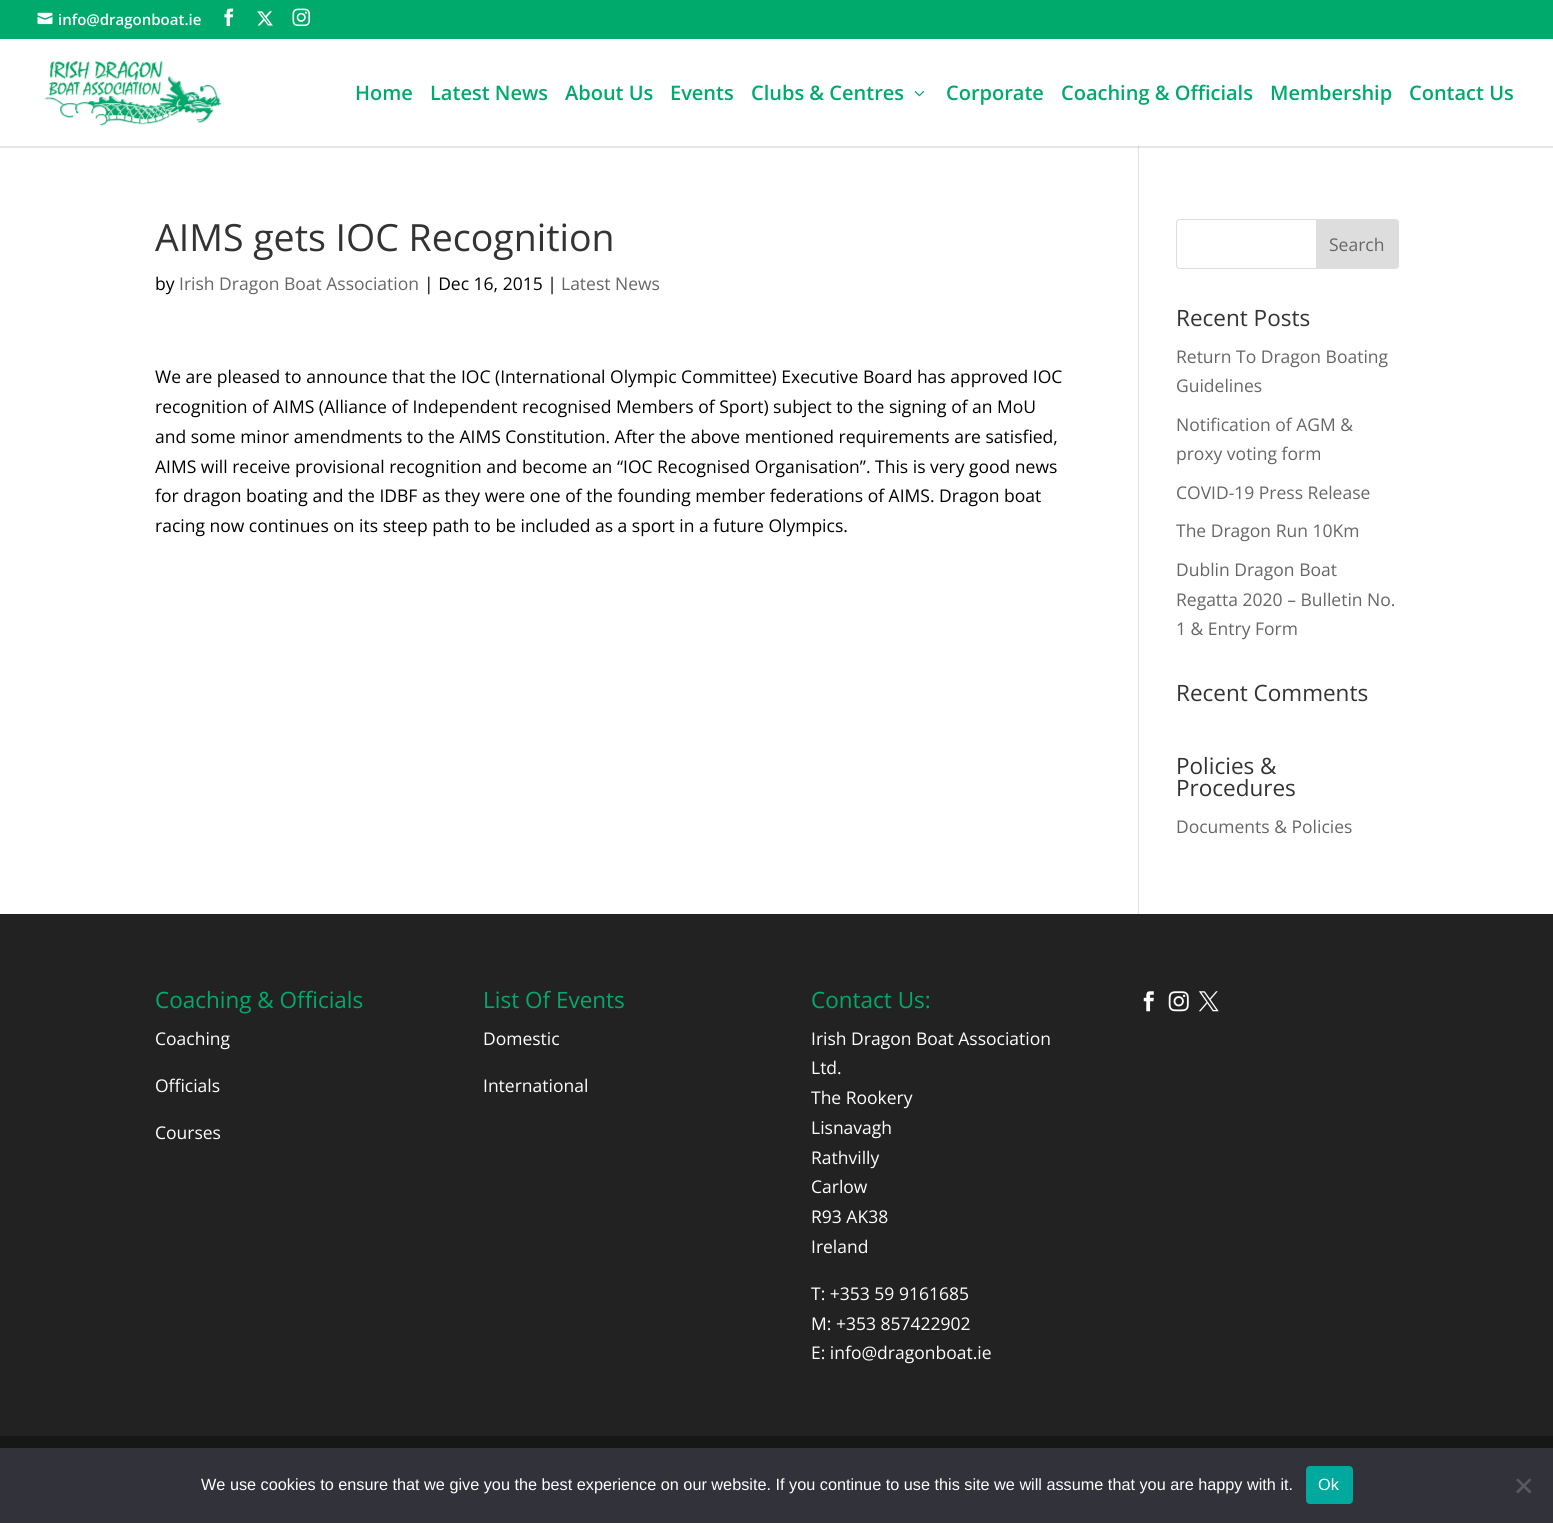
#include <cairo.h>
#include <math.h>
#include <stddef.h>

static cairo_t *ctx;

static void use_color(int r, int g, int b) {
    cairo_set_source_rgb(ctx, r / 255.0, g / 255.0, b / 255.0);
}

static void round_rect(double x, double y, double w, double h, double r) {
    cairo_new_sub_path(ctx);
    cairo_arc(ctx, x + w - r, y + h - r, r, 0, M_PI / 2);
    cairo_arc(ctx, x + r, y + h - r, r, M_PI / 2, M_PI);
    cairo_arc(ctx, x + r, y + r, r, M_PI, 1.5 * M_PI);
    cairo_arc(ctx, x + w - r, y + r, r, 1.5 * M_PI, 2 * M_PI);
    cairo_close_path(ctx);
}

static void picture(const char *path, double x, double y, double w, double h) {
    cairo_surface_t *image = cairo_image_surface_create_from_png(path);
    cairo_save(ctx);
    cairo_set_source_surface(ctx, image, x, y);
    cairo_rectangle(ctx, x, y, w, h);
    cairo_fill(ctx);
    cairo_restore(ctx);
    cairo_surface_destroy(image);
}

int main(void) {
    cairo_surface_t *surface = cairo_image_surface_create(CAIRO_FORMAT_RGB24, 1553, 1523);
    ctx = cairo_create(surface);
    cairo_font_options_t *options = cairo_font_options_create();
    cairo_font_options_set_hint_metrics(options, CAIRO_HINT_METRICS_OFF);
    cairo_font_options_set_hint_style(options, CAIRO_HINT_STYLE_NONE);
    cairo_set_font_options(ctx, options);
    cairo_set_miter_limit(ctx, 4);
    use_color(255, 255, 255);
    cairo_paint(ctx);
    use_color(0, 170, 109);
    cairo_rectangle(ctx, 0, 0, 1553, 39);
    cairo_fill(ctx);
    picture("img1.png", 37, 12, 16, 13);
    cairo_select_font_face(ctx, "Open Sans SemiBold", CAIRO_FONT_SLANT_NORMAL, CAIRO_FONT_WEIGHT_NORMAL);
    cairo_set_font_size(ctx, 15);
    use_color(255, 255, 255);
    cairo_move_to(ctx, 58, 25);
    cairo_show_text(ctx, "info@dragonboat.ie");
    picture("img2.png", 224, 8, 10, 19);
    picture("img3.png", 257, 11, 16, 15);
    picture("img4.png", 292, 8, 18, 19);
    use_color(226, 226, 226);
    cairo_rectangle(ctx, 1138, 146, 1, 768);
    cairo_fill(ctx);
    cairo_set_source_rgba(ctx, 0, 0, 0, 0.1);
    cairo_new_path(ctx);
    cairo_move_to(ctx, 0, 146);
    cairo_line_to(ctx, 0, 148);
    cairo_line_to(ctx, 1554, 148);
    cairo_line_to(ctx, 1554, 40);
    cairo_line_to(ctx, 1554, 146);
    cairo_close_path(ctx);
    cairo_fill(ctx);
    picture("img5.png", 45, 61, 177, 65);
    cairo_set_font_size(ctx, 20);
    use_color(0, 170, 109);
    cairo_move_to(ctx, 355, 100);
    cairo_show_text(ctx, "Home");
    cairo_move_to(ctx, 430, 100);
    cairo_show_text(ctx, "Latest News");
    cairo_move_to(ctx, 565, 100);
    cairo_show_text(ctx, "About Us");
    cairo_move_to(ctx, 670, 100);
    cairo_show_text(ctx, "Events");
    cairo_move_to(ctx, 751, 100);
    cairo_show_text(ctx, "Clubs & Centres");
    picture("img6.png", 914, 91, 10, 6);
    cairo_move_to(ctx, 946, 100);
    cairo_show_text(ctx, "Corporate");
    cairo_move_to(ctx, 1061, 100);
    cairo_show_text(ctx, "Coaching & Officials");
    cairo_move_to(ctx, 1270, 100);
    cairo_show_text(ctx, "Membership");
    cairo_move_to(ctx, 1409, 100);
    cairo_show_text(ctx, "Contact Us");
    cairo_select_font_face(ctx, "Open Sans", CAIRO_FONT_SLANT_NORMAL, CAIRO_FONT_WEIGHT_NORMAL);
    cairo_set_font_size(ctx, 37.5);
    use_color(51, 51, 51);
    cairo_move_to(ctx, 155, 251);
    cairo_show_text(ctx, "AIMS gets IOC Recognition");
    cairo_set_font_size(ctx, 17.5);
    use_color(0, 0, 0);
    cairo_move_to(ctx, 155, 290);
    cairo_show_text(ctx, "by");
    use_color(102, 102, 102);
    cairo_move_to(ctx, 179, 290);
    cairo_show_text(ctx, "Irish Dragon Boat Association");
    use_color(0, 0, 0);
    cairo_move_to(ctx, 424, 290);
    cairo_show_text(ctx, "| Dec 16, 2015 |");
    use_color(102, 102, 102);
    cairo_move_to(ctx, 561, 290);
    cairo_show_text(ctx, "Latest News");
    use_color(0, 0, 0);
    cairo_move_to(ctx, 155, 383);
    cairo_show_text(ctx, "We are pleased to announce that the IOC (International Olympic Committee) Executive Board has approved IOC");
    cairo_move_to(ctx, 155, 413);
    cairo_show_text(ctx, "recognition of AIMS (Alliance of Independent recognised Members of Sport) subject to the signing of an MoU");
    cairo_move_to(ctx, 155, 443);
    cairo_show_text(ctx, "and some minor amendments to the AIMS Constitution. After the above mentioned requirements are satisfied,");
    cairo_move_to(ctx, 155, 473);
    cairo_show_text(ctx, "AIMS will receive provisional recognition and become an “IOC Recognised Organisation”. This is very good news");
    cairo_move_to(ctx, 155, 502);
    cairo_show_text(ctx, "for dragon boating and the IDBF as they were one of the founding member federations of AIMS. Dragon boat");
    cairo_move_to(ctx, 155, 532);
    cairo_show_text(ctx, "racing now continues on its steep path to be included as a sport in a future Olympics.");
    round_rect(1176.5, 219.5, 222, 49, 3.5);
    use_color(221, 221, 221);
    cairo_set_line_width(ctx, 1);
    cairo_stroke(ctx);
    cairo_new_path(ctx);
    cairo_move_to(ctx, 1316.5, 219.5);
    cairo_line_to(ctx, 1395, 219.5);
    cairo_curve_to(ctx, 1397, 219.5, 1398.5, 221, 1398.5, 223);
    cairo_line_to(ctx, 1398.5, 265);
    cairo_curve_to(ctx, 1398.5, 267, 1397, 268.5, 1395, 268.5);
    cairo_line_to(ctx, 1316.5, 268.5);
    cairo_close_path(ctx);
    cairo_fill_preserve(ctx);
    cairo_stroke(ctx);
    use_color(102, 102, 102);
    cairo_move_to(ctx, 1329, 251);
    cairo_show_text(ctx, "Search");
    cairo_set_font_size(ctx, 22.5);
    use_color(51, 51, 51);
    cairo_move_to(ctx, 1176, 326);
    cairo_show_text(ctx, "Recent Posts");
    cairo_set_font_size(ctx, 17.5);
    use_color(102, 102, 102);
    cairo_move_to(ctx, 1176, 363);
    cairo_show_text(ctx, "Return To Dragon Boating");
    cairo_move_to(ctx, 1176, 392);
    cairo_show_text(ctx, "Guidelines");
    cairo_move_to(ctx, 1176, 431);
    cairo_show_text(ctx, "Notification of AGM &");
    cairo_move_to(ctx, 1176, 460);
    cairo_show_text(ctx, "proxy voting form");
    cairo_move_to(ctx, 1176, 499);
    cairo_show_text(ctx, "COVID-19 Press Release");
    cairo_move_to(ctx, 1176, 537);
    cairo_show_text(ctx, "The Dragon Run 10Km");
    cairo_move_to(ctx, 1176, 576);
    cairo_show_text(ctx, "Dublin Dragon Boat");
    cairo_move_to(ctx, 1176, 606);
    cairo_show_text(ctx, "Regatta 2020 – Bulletin No.");
    cairo_move_to(ctx, 1176, 635);
    cairo_show_text(ctx, "1 & Entry Form");
    cairo_set_font_size(ctx, 22.5);
    use_color(51, 51, 51);
    cairo_move_to(ctx, 1176, 701);
    cairo_show_text(ctx, "Recent Comments");
    cairo_move_to(ctx, 1176, 774);
    cairo_show_text(ctx, "Policies &");
    cairo_move_to(ctx, 1176, 796);
    cairo_show_text(ctx, "Procedures");
    cairo_set_font_size(ctx, 17.5);
    use_color(102, 102, 102);
    cairo_move_to(ctx, 1176, 833);
    cairo_show_text(ctx, "Documents & Policies");
    use_color(34, 34, 34);
    cairo_rectangle(ctx, 0, 914, 1553, 522);
    cairo_fill(ctx);
    cairo_set_font_size(ctx, 22.5);
    use_color(0, 170, 109);
    cairo_move_to(ctx, 155, 1008);
    cairo_show_text(ctx, "Coaching & Officials");
    cairo_set_font_size(ctx, 17.5);
    use_color(255, 255, 255);
    cairo_move_to(ctx, 155, 1045);
    cairo_show_text(ctx, "Coaching");
    cairo_move_to(ctx, 155, 1092);
    cairo_show_text(ctx, "Officials");
    cairo_move_to(ctx, 155, 1139);
    cairo_show_text(ctx, "Courses");
    cairo_set_font_size(ctx, 22.5);
    use_color(0, 170, 109);
    cairo_move_to(ctx, 483, 1008);
    cairo_show_text(ctx, "List Of Events");
    cairo_set_font_size(ctx, 17.5);
    use_color(255, 255, 255);
    cairo_move_to(ctx, 483, 1045);
    cairo_show_text(ctx, "Domestic");
    cairo_move_to(ctx, 483, 1092);
    cairo_show_text(ctx, "International");
    cairo_set_font_size(ctx, 22.5);
    use_color(0, 170, 109);
    cairo_move_to(ctx, 811, 1008);
    cairo_show_text(ctx, "Contact Us:");
    cairo_set_font_size(ctx, 17.5);
    use_color(255, 255, 255);
    cairo_move_to(ctx, 811, 1045);
    cairo_show_text(ctx, "Irish Dragon Boat Association");
    cairo_move_to(ctx, 811, 1074);
    cairo_show_text(ctx, "Ltd.");
    cairo_move_to(ctx, 811, 1104);
    cairo_show_text(ctx, "The Rookery");
    cairo_move_to(ctx, 811, 1134);
    cairo_show_text(ctx, "Lisnavagh");
    cairo_move_to(ctx, 811, 1164);
    cairo_show_text(ctx, "Rathvilly");
    cairo_move_to(ctx, 811, 1193);
    cairo_show_text(ctx, "Carlow");
    cairo_move_to(ctx, 811, 1223);
    cairo_show_text(ctx, "R93 AK38");
    cairo_move_to(ctx, 811, 1253);
    cairo_show_text(ctx, "Ireland");
    cairo_move_to(ctx, 811, 1300);
    cairo_show_text(ctx, "T: +353 59 9161685");
    cairo_move_to(ctx, 811, 1330);
    cairo_show_text(ctx, "M: +353 857422902");
    cairo_move_to(ctx, 811, 1359);
    cairo_show_text(ctx, "E: info@dragonboat.ie");
    picture("img7.png", 1143, 991, 11, 21);
    picture("img8.png", 1168, 991, 21, 21);
    picture("img9.png", 1198, 991, 21, 21);
    use_color(23, 23, 23);
    cairo_rectangle(ctx, 0, 1436, 1553, 12);
    cairo_fill(ctx);
    use_color(50, 50, 58);
    cairo_rectangle(ctx, 0, 1448, 1553, 75);
    cairo_fill(ctx);
    cairo_select_font_face(ctx, "Liberation Sans", CAIRO_FONT_SLANT_NORMAL, CAIRO_FONT_WEIGHT_NORMAL);
    cairo_set_font_size(ctx, 16.25);
    use_color(255, 255, 255);
    cairo_move_to(ctx, 201, 1490);
    cairo_show_text(ctx, "We use cookies to ensure that we give you the best experience on our website. If you continue to use this site we will assume that you are happy with it.");
    use_color(0, 169, 157);
    round_rect(1306, 1466, 47, 38, 4);
    cairo_fill(ctx);
    use_color(255, 255, 255);
    cairo_move_to(ctx, 1318, 1490);
    cairo_show_text(ctx, "Ok");
    use_color(89, 89, 93);
    cairo_new_path(ctx);
    cairo_move_to(ctx, 1529.5, 1478.5);
    cairo_line_to(ctx, 1531.5, 1480);
    cairo_line_to(ctx, 1518, 1493.5);
    cairo_line_to(ctx, 1516, 1491.5);
    cairo_close_path(ctx);
    cairo_fill(ctx);
    cairo_new_path(ctx);
    cairo_move_to(ctx, 1516, 1480);
    cairo_line_to(ctx, 1518, 1478.5);
    cairo_line_to(ctx, 1531.5, 1491.5);
    cairo_line_to(ctx, 1529.5, 1493.5);
    cairo_close_path(ctx);
    cairo_fill(ctx);
    cairo_surface_write_to_png(surface, "result.png");
    cairo_font_options_destroy(options);
    cairo_destroy(ctx);
    cairo_surface_destroy(surface);
    return 0;
}
